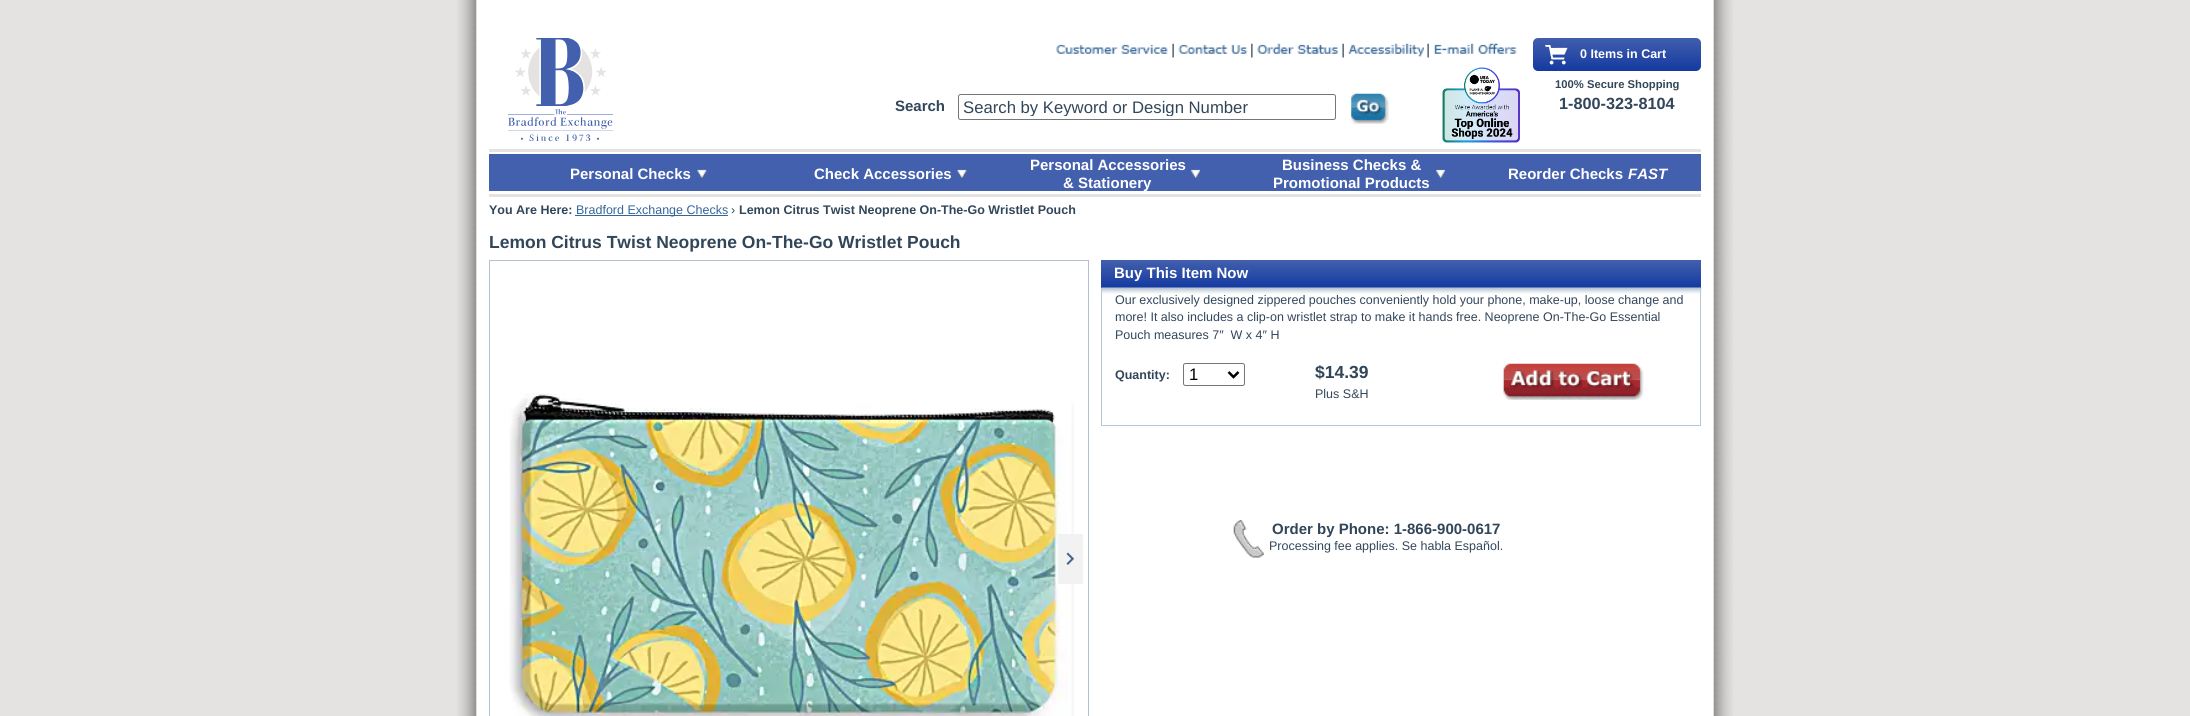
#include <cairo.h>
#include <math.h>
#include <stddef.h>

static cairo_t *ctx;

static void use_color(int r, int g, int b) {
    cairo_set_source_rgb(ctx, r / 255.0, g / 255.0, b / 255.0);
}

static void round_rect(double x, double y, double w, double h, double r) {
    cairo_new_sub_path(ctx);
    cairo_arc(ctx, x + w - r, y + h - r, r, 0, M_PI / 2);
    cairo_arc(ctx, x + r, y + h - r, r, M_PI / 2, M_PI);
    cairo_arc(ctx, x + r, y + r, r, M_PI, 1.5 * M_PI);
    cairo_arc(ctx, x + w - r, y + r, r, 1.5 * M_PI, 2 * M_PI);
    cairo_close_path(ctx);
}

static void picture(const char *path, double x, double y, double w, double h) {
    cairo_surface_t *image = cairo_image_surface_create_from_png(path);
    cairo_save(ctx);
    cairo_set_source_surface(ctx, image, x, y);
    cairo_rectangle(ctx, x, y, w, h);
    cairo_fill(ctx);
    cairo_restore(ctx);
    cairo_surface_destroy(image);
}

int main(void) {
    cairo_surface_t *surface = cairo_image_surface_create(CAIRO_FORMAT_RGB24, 2190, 716);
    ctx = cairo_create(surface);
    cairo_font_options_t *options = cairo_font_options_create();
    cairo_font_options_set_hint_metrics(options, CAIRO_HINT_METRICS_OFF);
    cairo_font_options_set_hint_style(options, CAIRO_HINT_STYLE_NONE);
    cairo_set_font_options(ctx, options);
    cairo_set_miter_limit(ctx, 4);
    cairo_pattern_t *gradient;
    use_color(229, 227, 225);
    cairo_paint(ctx);
    picture("img1.png", 457, 0, 1276, 716);
    picture("img2.png", 508, 38, 106, 103);
    picture("img3.png", 1172, 43, 2, 15);
    picture("img4.png", 1056, 44, 112, 10);
    picture("img5.png", 1251, 43, 2, 15);
    picture("img6.png", 1178, 44, 70, 10);
    picture("img3.png", 1342, 43, 2, 15);
    picture("img7.png", 1257, 43, 82, 11);
    picture("img3.png", 1427, 43, 2, 15);
    picture("img8.png", 1348, 43, 76, 14);
    picture("img9.png", 1433, 43, 84, 11);
    gradient = cairo_pattern_create_linear(1617, 37, 1617, 71);
    cairo_pattern_add_color_stop_rgba(gradient, 0, 0.263, 0.376, 0.682, 1);
    cairo_pattern_add_color_stop_rgba(gradient, 1, 0.078, 0.227, 0.631, 1);
    cairo_set_source(ctx, gradient);
    cairo_pattern_destroy(gradient);
    round_rect(1533, 38, 168, 33, 5);
    cairo_fill(ctx);
    picture("img10.png", 1545, 45, 23, 20);
    cairo_select_font_face(ctx, "Liberation Sans", CAIRO_FONT_SLANT_NORMAL, CAIRO_FONT_WEIGHT_BOLD);
    cairo_set_font_size(ctx, 12.5);
    use_color(255, 255, 255);
    cairo_move_to(ctx, 1580, 58);
    cairo_show_text(ctx, "0 Items in Cart");
    cairo_set_font_size(ctx, 11.25);
    use_color(50, 70, 90);
    cairo_move_to(ctx, 1555, 88);
    cairo_show_text(ctx, "100% Secure Shopping");
    cairo_set_font_size(ctx, 16.25);
    cairo_move_to(ctx, 1559, 109);
    cairo_show_text(ctx, "1-800-323-8104");
    cairo_set_font_size(ctx, 15);
    cairo_move_to(ctx, 895, 111);
    cairo_show_text(ctx, "Search");
    round_rect(958.5, 94.5, 377, 25, 2);
    use_color(118, 118, 118);
    cairo_set_line_width(ctx, 1);
    cairo_stroke(ctx);
    cairo_save(ctx);
    cairo_rectangle(ctx, 963, 98, 368, 18);
    cairo_clip(ctx);
    cairo_select_font_face(ctx, "Liberation Sans", CAIRO_FONT_SLANT_NORMAL, CAIRO_FONT_WEIGHT_NORMAL);
    cairo_set_font_size(ctx, 16.7);
    use_color(50, 70, 90);
    cairo_move_to(ctx, 963, 113);
    cairo_show_text(ctx, "Search by Keyword or Design Number");
    cairo_restore(ctx);
    picture("img11.png", 1351, 93, 38, 31);
    picture("img12.png", 1442, 67, 78, 76);
    use_color(67, 96, 174);
    cairo_rectangle(ctx, 489, 154, 1212, 37);
    cairo_fill(ctx);
    use_color(229, 227, 225);
    cairo_rectangle(ctx, 489, 149, 1212, 3);
    cairo_fill(ctx);
    use_color(255, 255, 255);
    cairo_move_to(ctx, 570, 179);
    cairo_show_text(ctx, "Personal Checks");
    picture("img13.png", 697, 169, 10, 9);
    cairo_move_to(ctx, 814, 179);
    cairo_show_text(ctx, "Check Accessories");
    picture("img14.png", 957, 169, 10, 9);
    cairo_move_to(ctx, 1030, 170);
    cairo_show_text(ctx, "Personal Accessories");
    cairo_move_to(ctx, 1063, 188);
    cairo_show_text(ctx, "& Stationery");
    picture("img15.png", 1191, 169, 9, 9);
    cairo_move_to(ctx, 1282, 170);
    cairo_show_text(ctx, "Business Checks &");
    cairo_move_to(ctx, 1273, 188);
    cairo_show_text(ctx, "Promotional Products");
    picture("img15.png", 1436, 169, 9, 9);
    cairo_move_to(ctx, 1508, 179);
    cairo_show_text(ctx, "Reorder Checks");
    cairo_select_font_face(ctx, "Liberation Sans", CAIRO_FONT_SLANT_ITALIC, CAIRO_FONT_WEIGHT_BOLD);
    cairo_move_to(ctx, 1628, 179);
    cairo_show_text(ctx, "FAST");
    use_color(229, 227, 225);
    cairo_rectangle(ctx, 489, 194, 1212, 3);
    cairo_fill(ctx);
    cairo_select_font_face(ctx, "Liberation Sans", CAIRO_FONT_SLANT_NORMAL, CAIRO_FONT_WEIGHT_BOLD);
    cairo_set_font_size(ctx, 12.5);
    use_color(50, 70, 90);
    cairo_move_to(ctx, 489, 214);
    cairo_show_text(ctx, "You Are Here:");
    use_color(51, 102, 153);
    cairo_rectangle(ctx, 575, 215, 153, 1);
    cairo_fill(ctx);
    cairo_select_font_face(ctx, "Liberation Sans", CAIRO_FONT_SLANT_NORMAL, CAIRO_FONT_WEIGHT_NORMAL);
    cairo_move_to(ctx, 576, 214);
    cairo_show_text(ctx, "Bradford Exchange Checks");
    use_color(50, 70, 90);
    cairo_move_to(ctx, 731, 214);
    cairo_show_text(ctx, "›");
    cairo_select_font_face(ctx, "Liberation Sans", CAIRO_FONT_SLANT_NORMAL, CAIRO_FONT_WEIGHT_BOLD);
    cairo_move_to(ctx, 739, 214);
    cairo_show_text(ctx, "Lemon Citrus Twist Neoprene On-The-Go Wristlet Pouch");
    cairo_set_font_size(ctx, 17.5);
    cairo_move_to(ctx, 489, 248);
    cairo_show_text(ctx, "Lemon Citrus Twist Neoprene On-The-Go Wristlet Pouch");
    cairo_rectangle(ctx, 489.5, 260.5, 599, 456);
    use_color(178, 192, 208);
    cairo_stroke(ctx);
    picture("img16.png", 509, 393, 565, 323);
    use_color(242, 242, 242);
    cairo_rectangle(ctx, 1058, 534, 25, 50);
    cairo_fill(ctx);
    picture("img17.png", 1066, 552, 9, 13);
    gradient = cairo_pattern_create_linear(1401, 260, 1401, 288);
    cairo_pattern_add_color_stop_rgba(gradient, 0, 0.263, 0.376, 0.682, 1);
    cairo_pattern_add_color_stop_rgba(gradient, 1, 0.078, 0.227, 0.631, 1);
    cairo_set_source(ctx, gradient);
    cairo_pattern_destroy(gradient);
    cairo_rectangle(ctx, 1101, 260, 600, 28);
    cairo_fill(ctx);
    cairo_set_font_size(ctx, 15);
    use_color(255, 255, 255);
    cairo_move_to(ctx, 1114, 278);
    cairo_show_text(ctx, "Buy This Item Now");
    picture("img18.png", 1101, 287, 601, 7);
    use_color(180, 200, 220);
    cairo_rectangle(ctx, 1700, 288, 1, 138);
    cairo_fill(ctx);
    cairo_rectangle(ctx, 1101, 425, 600, 1);
    cairo_fill(ctx);
    cairo_rectangle(ctx, 1101, 288, 1, 138);
    cairo_fill(ctx);
    cairo_select_font_face(ctx, "Liberation Sans", CAIRO_FONT_SLANT_NORMAL, CAIRO_FONT_WEIGHT_NORMAL);
    cairo_set_font_size(ctx, 12.5);
    use_color(50, 70, 90);
    cairo_move_to(ctx, 1115, 304);
    cairo_show_text(ctx, "Our exclusively designed zippered pouches conveniently hold your phone, make-up, loose change and");
    cairo_move_to(ctx, 1115, 321);
    cairo_show_text(ctx, "more! It also includes a clip-on wristlet strap to make it hands free. Neoprene On-The-Go Essential");
    cairo_move_to(ctx, 1115, 339);
    cairo_show_text(ctx, "Pouch measures 7″  W x 4″ H");
    cairo_select_font_face(ctx, "Liberation Sans", CAIRO_FONT_SLANT_NORMAL, CAIRO_FONT_WEIGHT_BOLD);
    cairo_move_to(ctx, 1115, 379);
    cairo_show_text(ctx, "Quantity:");
    round_rect(1183.5, 363.5, 61, 22, 2);
    use_color(118, 118, 118);
    cairo_stroke(ctx);
    cairo_new_path(ctx);
    cairo_move_to(ctx, 1228.5, 372);
    cairo_line_to(ctx, 1233.5, 377);
    cairo_line_to(ctx, 1238.5, 372);
    use_color(0, 0, 0);
    cairo_set_line_width(ctx, 2.5);
    cairo_stroke(ctx);
    cairo_select_font_face(ctx, "Liberation Sans", CAIRO_FONT_SLANT_NORMAL, CAIRO_FONT_WEIGHT_NORMAL);
    cairo_set_font_size(ctx, 16.7);
    cairo_move_to(ctx, 1189, 380);
    cairo_show_text(ctx, "1");
    cairo_select_font_face(ctx, "Liberation Sans", CAIRO_FONT_SLANT_NORMAL, CAIRO_FONT_WEIGHT_BOLD);
    cairo_set_font_size(ctx, 17.5);
    use_color(50, 70, 90);
    cairo_move_to(ctx, 1315, 378);
    cairo_show_text(ctx, "$14.39");
    cairo_select_font_face(ctx, "Liberation Sans", CAIRO_FONT_SLANT_NORMAL, CAIRO_FONT_WEIGHT_NORMAL);
    cairo_set_font_size(ctx, 12.5);
    cairo_move_to(ctx, 1315, 398);
    cairo_show_text(ctx, "Plus S&H");
    picture("img19.png", 1502, 363, 142, 37);
    picture("img20.png", 1233, 520, 31, 38);
    cairo_select_font_face(ctx, "Liberation Sans", CAIRO_FONT_SLANT_NORMAL, CAIRO_FONT_WEIGHT_BOLD);
    cairo_set_font_size(ctx, 15);
    cairo_move_to(ctx, 1272, 534);
    cairo_show_text(ctx, "Order by Phone: 1-866-900-0617");
    cairo_select_font_face(ctx, "Liberation Sans", CAIRO_FONT_SLANT_NORMAL, CAIRO_FONT_WEIGHT_NORMAL);
    cairo_set_font_size(ctx, 12.5);
    cairo_move_to(ctx, 1269, 550);
    cairo_show_text(ctx, "Processing fee applies. Se habla Español.");
    cairo_surface_write_to_png(surface, "result.png");
    cairo_font_options_destroy(options);
    cairo_destroy(ctx);
    cairo_surface_destroy(surface);
    return 0;
}
